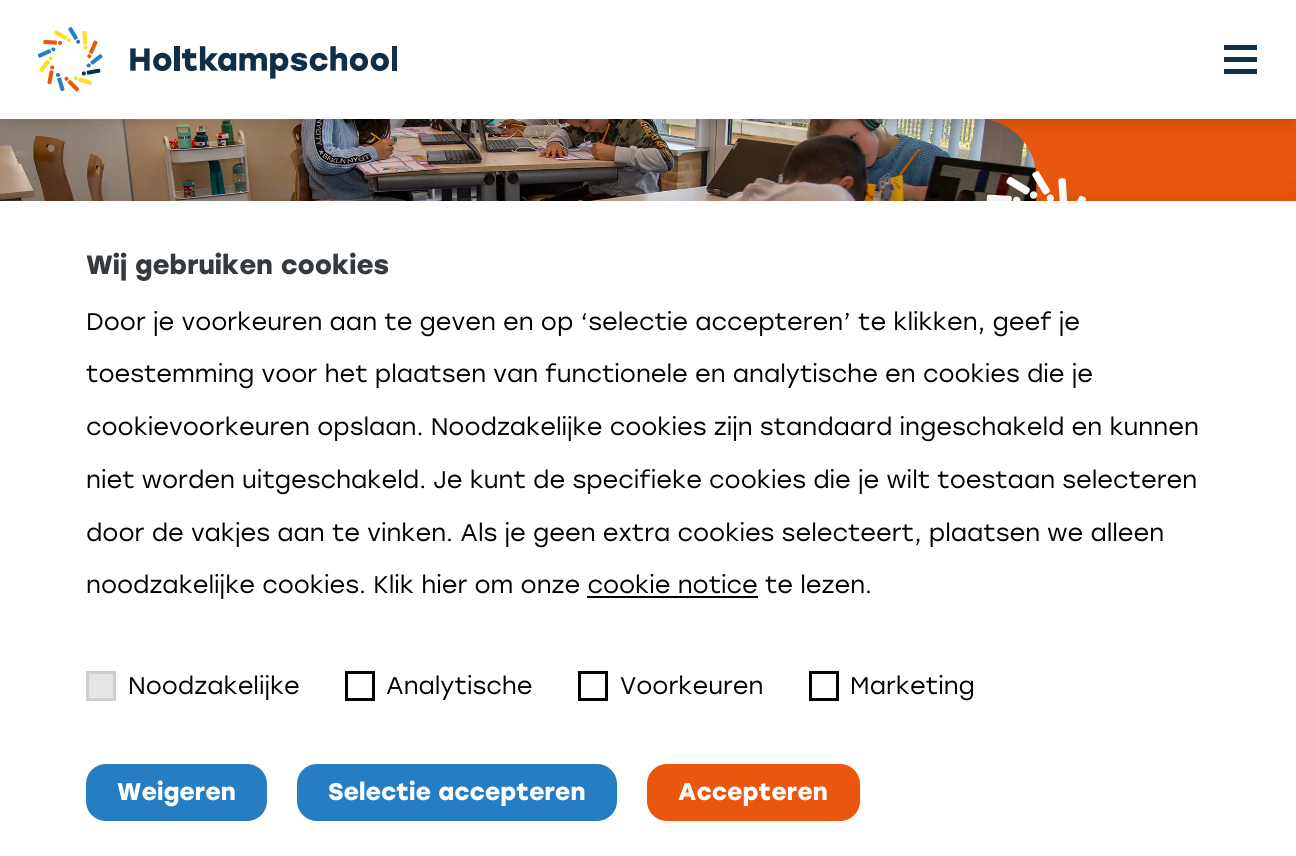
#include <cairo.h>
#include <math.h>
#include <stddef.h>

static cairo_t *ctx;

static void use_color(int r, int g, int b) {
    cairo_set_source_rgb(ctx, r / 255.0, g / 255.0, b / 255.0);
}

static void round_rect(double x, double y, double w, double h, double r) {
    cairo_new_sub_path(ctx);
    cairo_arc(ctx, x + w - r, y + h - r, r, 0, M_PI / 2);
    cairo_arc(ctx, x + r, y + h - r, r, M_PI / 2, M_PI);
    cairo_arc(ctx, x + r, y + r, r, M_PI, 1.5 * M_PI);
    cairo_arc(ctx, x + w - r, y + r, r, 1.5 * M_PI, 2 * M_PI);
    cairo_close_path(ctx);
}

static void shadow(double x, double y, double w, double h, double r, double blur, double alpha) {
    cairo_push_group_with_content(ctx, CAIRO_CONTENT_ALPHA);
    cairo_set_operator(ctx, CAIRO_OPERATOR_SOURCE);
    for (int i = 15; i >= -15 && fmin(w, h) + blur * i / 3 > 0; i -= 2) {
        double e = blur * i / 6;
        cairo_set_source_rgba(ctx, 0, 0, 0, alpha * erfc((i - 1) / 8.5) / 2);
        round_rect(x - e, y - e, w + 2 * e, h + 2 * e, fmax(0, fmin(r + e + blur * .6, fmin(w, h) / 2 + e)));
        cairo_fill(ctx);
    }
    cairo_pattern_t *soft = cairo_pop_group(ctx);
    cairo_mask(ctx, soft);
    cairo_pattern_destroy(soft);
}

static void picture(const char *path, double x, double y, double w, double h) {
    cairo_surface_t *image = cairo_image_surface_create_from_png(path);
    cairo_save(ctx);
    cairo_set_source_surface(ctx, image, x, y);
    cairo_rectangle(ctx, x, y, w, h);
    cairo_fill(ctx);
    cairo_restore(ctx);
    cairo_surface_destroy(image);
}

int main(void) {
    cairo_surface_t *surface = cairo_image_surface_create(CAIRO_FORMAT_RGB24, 1296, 856);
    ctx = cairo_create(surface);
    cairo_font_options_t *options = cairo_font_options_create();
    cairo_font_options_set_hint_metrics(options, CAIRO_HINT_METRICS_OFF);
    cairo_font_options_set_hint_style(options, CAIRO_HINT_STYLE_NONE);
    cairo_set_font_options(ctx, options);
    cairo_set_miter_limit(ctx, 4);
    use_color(234, 86, 13);
    cairo_paint(ctx);
    picture("img2.png", 0, 119, 1037, 82);
    use_color(0, 0, 0);
    shadow(3, 3, 1290, 113, 0, 11, 0.3);
    use_color(255, 255, 255);
    cairo_rectangle(ctx, 0, 0, 1296, 119);
    cairo_fill(ctx);
    picture("img1.png", 38, 27, 359, 65);
    use_color(17, 47, 73);
    cairo_rectangle(ctx, 1224, 45, 33, 5);
    cairo_fill(ctx);
    cairo_rectangle(ctx, 1224, 57, 33, 5);
    cairo_fill(ctx);
    cairo_rectangle(ctx, 1224, 69, 33, 5);
    cairo_fill(ctx);
    picture("img3.png", 986, 171, 100, 30);
    use_color(0, 0, 0);
    shadow(0, 230, 1296, 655, 0, 28.5, 0.3);
    use_color(255, 255, 255);
    cairo_rectangle(ctx, 0, 201, 1296, 655);
    cairo_fill(ctx);
    cairo_select_font_face(ctx, "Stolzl", CAIRO_FONT_SLANT_NORMAL, CAIRO_FONT_WEIGHT_BOLD);
    cairo_set_font_size(ctx, 26.4);
    use_color(52, 58, 64);
    cairo_move_to(ctx, 86, 274);
    cairo_show_text(ctx, "Wij gebruiken cookies");
    cairo_select_font_face(ctx, "Stolzl", CAIRO_FONT_SLANT_NORMAL, CAIRO_FONT_WEIGHT_NORMAL);
    cairo_set_font_size(ctx, 24);
    use_color(0, 0, 0);
    cairo_move_to(ctx, 86, 330);
    cairo_show_text(ctx, "Door je voorkeuren aan te geven en op ‘selectie accepteren’ te klikken, geef je");
    cairo_move_to(ctx, 86, 382);
    cairo_show_text(ctx, "toestemming voor het plaatsen van functionele en analytische en cookies die je");
    cairo_move_to(ctx, 86, 435);
    cairo_show_text(ctx, "cookievoorkeuren opslaan. Noodzakelijke cookies zijn standaard ingeschakeld en kunnen");
    cairo_move_to(ctx, 86, 488);
    cairo_show_text(ctx, "niet worden uitgeschakeld. Je kunt de specifieke cookies die je wilt toestaan selecteren");
    cairo_move_to(ctx, 86, 541);
    cairo_show_text(ctx, "door de vakjes aan te vinken. Als je geen extra cookies selecteert, plaatsen we alleen");
    cairo_move_to(ctx, 86, 593);
    cairo_show_text(ctx, "noodzakelijke cookies. Klik hier om onze cookie notice te lezen.");
    cairo_rectangle(ctx, 587, 596, 171, 2);
    cairo_fill(ctx);
    use_color(230, 230, 230);
    cairo_rectangle(ctx, 87.5, 672.5, 27, 27);
    cairo_fill_preserve(ctx);
    use_color(207, 207, 207);
    cairo_set_line_width(ctx, 3);
    cairo_stroke(ctx);
    use_color(0, 0, 0);
    cairo_move_to(ctx, 128, 694);
    cairo_show_text(ctx, "Noodzakelijke");
    cairo_rectangle(ctx, 346.5, 672.5, 27, 27);
    cairo_stroke(ctx);
    cairo_move_to(ctx, 386, 694);
    cairo_show_text(ctx, "Analytische");
    cairo_rectangle(ctx, 579.5, 672.5, 27, 27);
    cairo_stroke(ctx);
    cairo_move_to(ctx, 620, 694);
    cairo_show_text(ctx, "Voorkeuren");
    cairo_rectangle(ctx, 810.5, 672.5, 27, 27);
    cairo_stroke(ctx);
    cairo_move_to(ctx, 850, 694);
    cairo_show_text(ctx, "Marketing");
    use_color(38, 125, 193);
    round_rect(87, 765, 179, 55, 19);
    cairo_fill_preserve(ctx);
    cairo_set_line_width(ctx, 2);
    cairo_stroke(ctx);
    cairo_select_font_face(ctx, "Stolzl", CAIRO_FONT_SLANT_NORMAL, CAIRO_FONT_WEIGHT_BOLD);
    use_color(255, 255, 255);
    cairo_move_to(ctx, 117, 800);
    cairo_show_text(ctx, "Weigeren");
    use_color(38, 125, 193);
    round_rect(298, 765, 318, 55, 19);
    cairo_fill_preserve(ctx);
    cairo_stroke(ctx);
    use_color(255, 255, 255);
    cairo_move_to(ctx, 328, 800);
    cairo_show_text(ctx, "Selectie accepteren");
    use_color(234, 86, 13);
    round_rect(648, 765, 211, 55, 19);
    cairo_fill_preserve(ctx);
    cairo_stroke(ctx);
    use_color(255, 255, 255);
    cairo_move_to(ctx, 678, 800);
    cairo_show_text(ctx, "Accepteren");
    cairo_surface_write_to_png(surface, "result.png");
    cairo_font_options_destroy(options);
    cairo_destroy(ctx);
    cairo_surface_destroy(surface);
    return 0;
}
